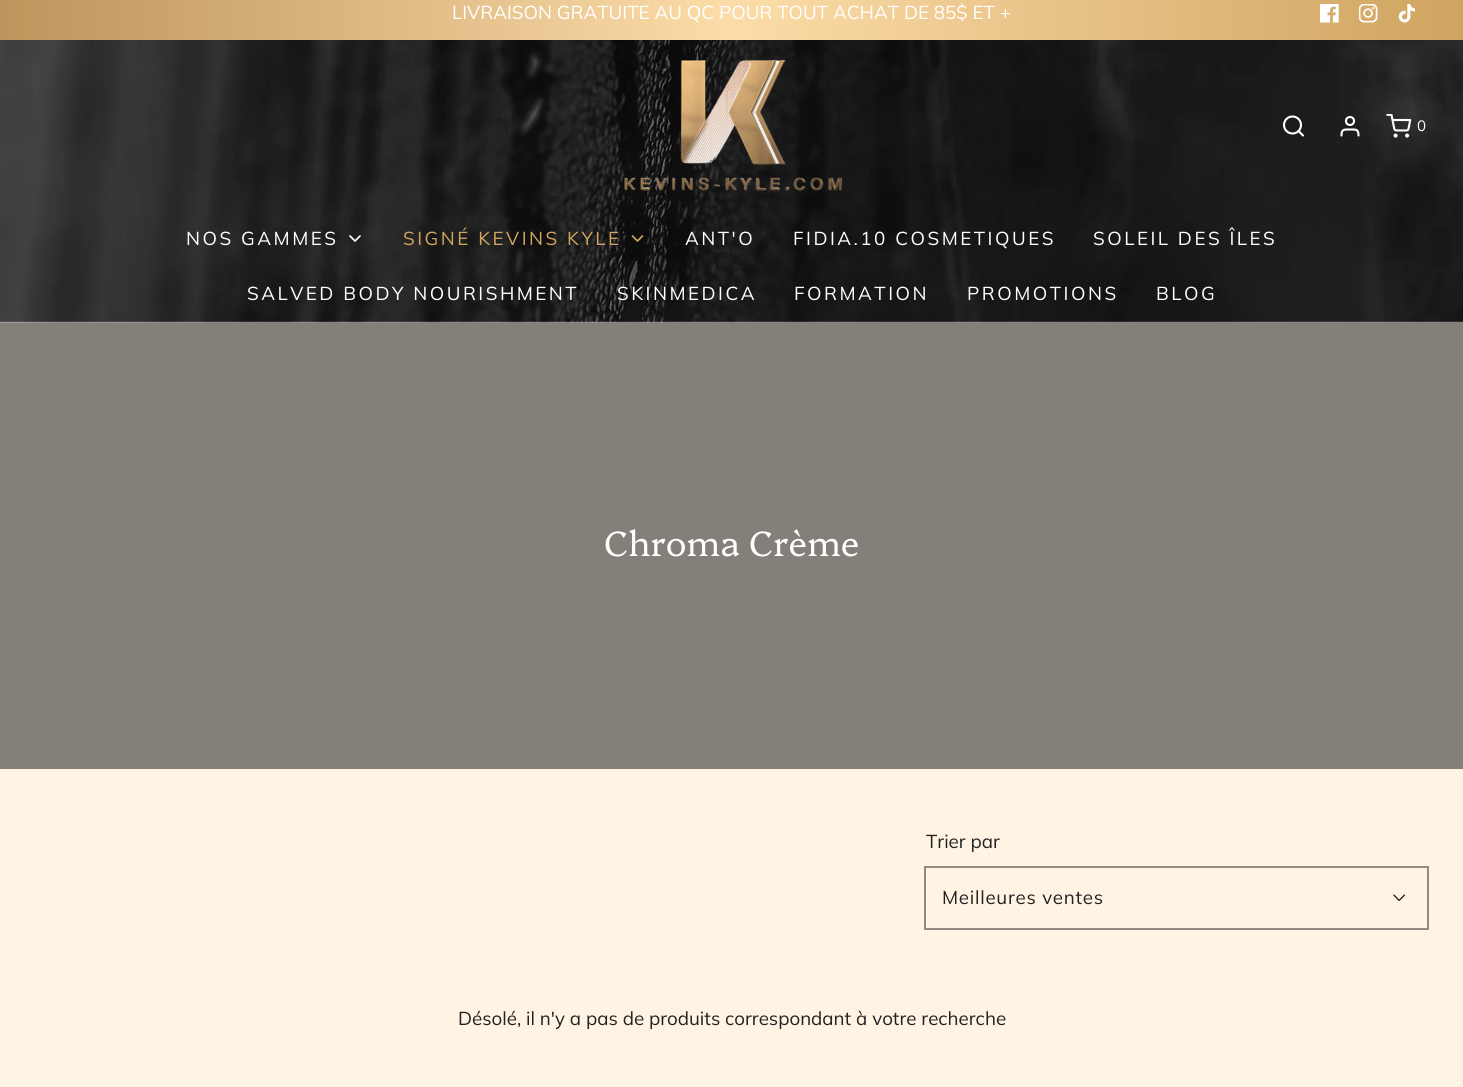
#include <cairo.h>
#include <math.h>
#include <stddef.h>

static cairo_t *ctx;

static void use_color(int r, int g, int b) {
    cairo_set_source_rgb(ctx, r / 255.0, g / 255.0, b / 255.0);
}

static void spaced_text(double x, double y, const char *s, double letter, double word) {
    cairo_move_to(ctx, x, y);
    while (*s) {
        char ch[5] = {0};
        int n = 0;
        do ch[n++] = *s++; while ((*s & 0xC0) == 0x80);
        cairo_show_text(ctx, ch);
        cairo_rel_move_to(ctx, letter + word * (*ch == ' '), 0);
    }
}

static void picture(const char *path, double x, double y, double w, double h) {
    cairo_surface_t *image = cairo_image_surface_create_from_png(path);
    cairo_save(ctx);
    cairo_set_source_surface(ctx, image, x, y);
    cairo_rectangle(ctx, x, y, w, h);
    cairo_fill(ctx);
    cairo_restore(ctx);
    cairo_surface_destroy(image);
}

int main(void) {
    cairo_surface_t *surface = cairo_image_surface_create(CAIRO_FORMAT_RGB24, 1463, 1087);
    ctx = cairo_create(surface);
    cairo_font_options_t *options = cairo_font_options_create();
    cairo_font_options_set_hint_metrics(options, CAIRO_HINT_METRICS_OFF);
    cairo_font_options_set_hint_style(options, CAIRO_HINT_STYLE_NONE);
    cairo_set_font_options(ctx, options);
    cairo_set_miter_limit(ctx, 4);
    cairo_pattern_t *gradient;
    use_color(255, 243, 228);
    cairo_paint(ctx);
    gradient = cairo_pattern_create_linear(0, 13, 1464, 12);
    cairo_pattern_add_color_stop_rgba(gradient, 0, 0.741, 0.58, 0.361, 1);
    cairo_pattern_add_color_stop_rgba(gradient, 0.5, 0.988, 0.863, 0.659, 1);
    cairo_pattern_add_color_stop_rgba(gradient, 1, 0.812, 0.643, 0.376, 1);
    cairo_set_source(ctx, gradient);
    cairo_pattern_destroy(gradient);
    cairo_rectangle(ctx, 0, 0, 1463, 40);
    cairo_fill(ctx);
    cairo_select_font_face(ctx, "Muli", CAIRO_FONT_SLANT_NORMAL, CAIRO_FONT_WEIGHT_NORMAL);
    cairo_set_font_size(ctx, 18.75);
    use_color(255, 255, 255);
    cairo_move_to(ctx, 452, 19);
    cairo_show_text(ctx, "LIVRAISON GRATUITE AU QC POUR TOUT ACHAT DE 85$ ET +");
    picture("img1.png", 1320, 4, 19, 19);
    picture("img2.png", 1359, 4, 19, 19);
    picture("img3.png", 1398, 4, 17, 19);
    picture("img4.png", 0, 40, 1463, 283);
    cairo_set_source_rgba(ctx, 1, 1, 1, 0.1);
    cairo_rectangle(ctx, 0, 321, 1463, 1);
    cairo_fill(ctx);
    picture("img5.png", 624, 59, 219, 132);
    cairo_arc(ctx, 1292.5, 125, 8.5, 0, 2 * M_PI);
    use_color(255, 255, 255);
    cairo_set_line_width(ctx, 2.1);
    cairo_stroke(ctx);
    cairo_new_path(ctx);
    cairo_move_to(ctx, 1303, 135.5);
    cairo_line_to(ctx, 1298.5, 131);
    cairo_move_to(ctx, 1358.5, 135.5);
    cairo_curve_to(ctx, 1358.5, 129, 1356, 129.5, 1350, 129.5);
    cairo_curve_to(ctx, 1344, 129.5, 1341.5, 129, 1341.5, 135.5);
    cairo_set_line_cap(ctx, CAIRO_LINE_CAP_ROUND);
    cairo_set_line_join(ctx, CAIRO_LINE_JOIN_ROUND);
    cairo_stroke(ctx);
    cairo_arc(ctx, 1350, 121, 4, 0, 2 * M_PI);
    cairo_set_line_cap(ctx, CAIRO_LINE_CAP_BUTT);
    cairo_set_line_join(ctx, CAIRO_LINE_JOIN_MITER);
    cairo_stroke(ctx);
    picture("img6.png", 1386, 114, 26, 24);
    cairo_set_font_size(ctx, 15);
    cairo_move_to(ctx, 1417, 131);
    cairo_show_text(ctx, "0");
    cairo_set_font_size(ctx, 18.75);
    spaced_text(186, 245, "NOS GAMMES", 2.5, 0);
    cairo_new_path(ctx);
    cairo_move_to(ctx, 350, 236);
    cairo_line_to(ctx, 355, 241);
    cairo_line_to(ctx, 360, 236);
    cairo_set_line_width(ctx, 1.7);
    cairo_set_line_cap(ctx, CAIRO_LINE_CAP_ROUND);
    cairo_set_line_join(ctx, CAIRO_LINE_JOIN_ROUND);
    cairo_stroke(ctx);
    use_color(208, 165, 97);
    spaced_text(403, 245, "SIGNÉ KEVINS KYLE", 2.5, 0);
    cairo_new_path(ctx);
    cairo_move_to(ctx, 632.5, 236);
    cairo_line_to(ctx, 637.5, 241);
    cairo_line_to(ctx, 642.5, 236);
    cairo_stroke(ctx);
    use_color(255, 255, 255);
    spaced_text(685, 245, "ANT'O", 2.5, 0);
    spaced_text(793, 245, "FIDIA.10 COSMETIQUES", 2.5, 0);
    spaced_text(1093, 245, "SOLEIL DES ÎLES", 2.5, 0);
    spaced_text(247, 300, "SALVED BODY NOURISHMENT", 2.5, 0);
    spaced_text(617, 300, "SKINMEDICA", 2.5, 0);
    spaced_text(794, 300, "FORMATION", 2.5, 0);
    spaced_text(967, 300, "PROMOTIONS", 2.5, 0);
    spaced_text(1156, 300, "BLOG", 2.5, 0);
    use_color(133, 127, 121);
    cairo_rectangle(ctx, 0, 323, 1463, 446);
    cairo_fill(ctx);
    cairo_select_font_face(ctx, "Platypi Light", CAIRO_FONT_SLANT_NORMAL, CAIRO_FONT_WEIGHT_NORMAL);
    cairo_set_font_size(ctx, 35);
    use_color(255, 255, 255);
    cairo_move_to(ctx, 604, 556);
    cairo_show_text(ctx, "Chroma Crème");
    cairo_select_font_face(ctx, "Muli", CAIRO_FONT_SLANT_NORMAL, CAIRO_FONT_WEIGHT_NORMAL);
    cairo_set_font_size(ctx, 18.75);
    use_color(33, 33, 33);
    cairo_move_to(ctx, 926, 848);
    cairo_show_text(ctx, "Trier par");
    cairo_rectangle(ctx, 925, 867, 503, 62);
    use_color(144, 138, 131);
    cairo_set_line_width(ctx, 2);
    cairo_set_line_cap(ctx, CAIRO_LINE_CAP_BUTT);
    cairo_set_line_join(ctx, CAIRO_LINE_JOIN_MITER);
    cairo_stroke(ctx);
    use_color(33, 33, 33);
    spaced_text(942, 904, "Meilleures ventes", 0.75, 0);
    picture("img7.png", 1393, 894, 13, 7);
    cairo_move_to(ctx, 458, 1025);
    cairo_show_text(ctx, "Désolé, il n'y a pas de produits correspondant à votre recherche");
    cairo_surface_write_to_png(surface, "result.png");
    cairo_font_options_destroy(options);
    cairo_destroy(ctx);
    cairo_surface_destroy(surface);
    return 0;
}
